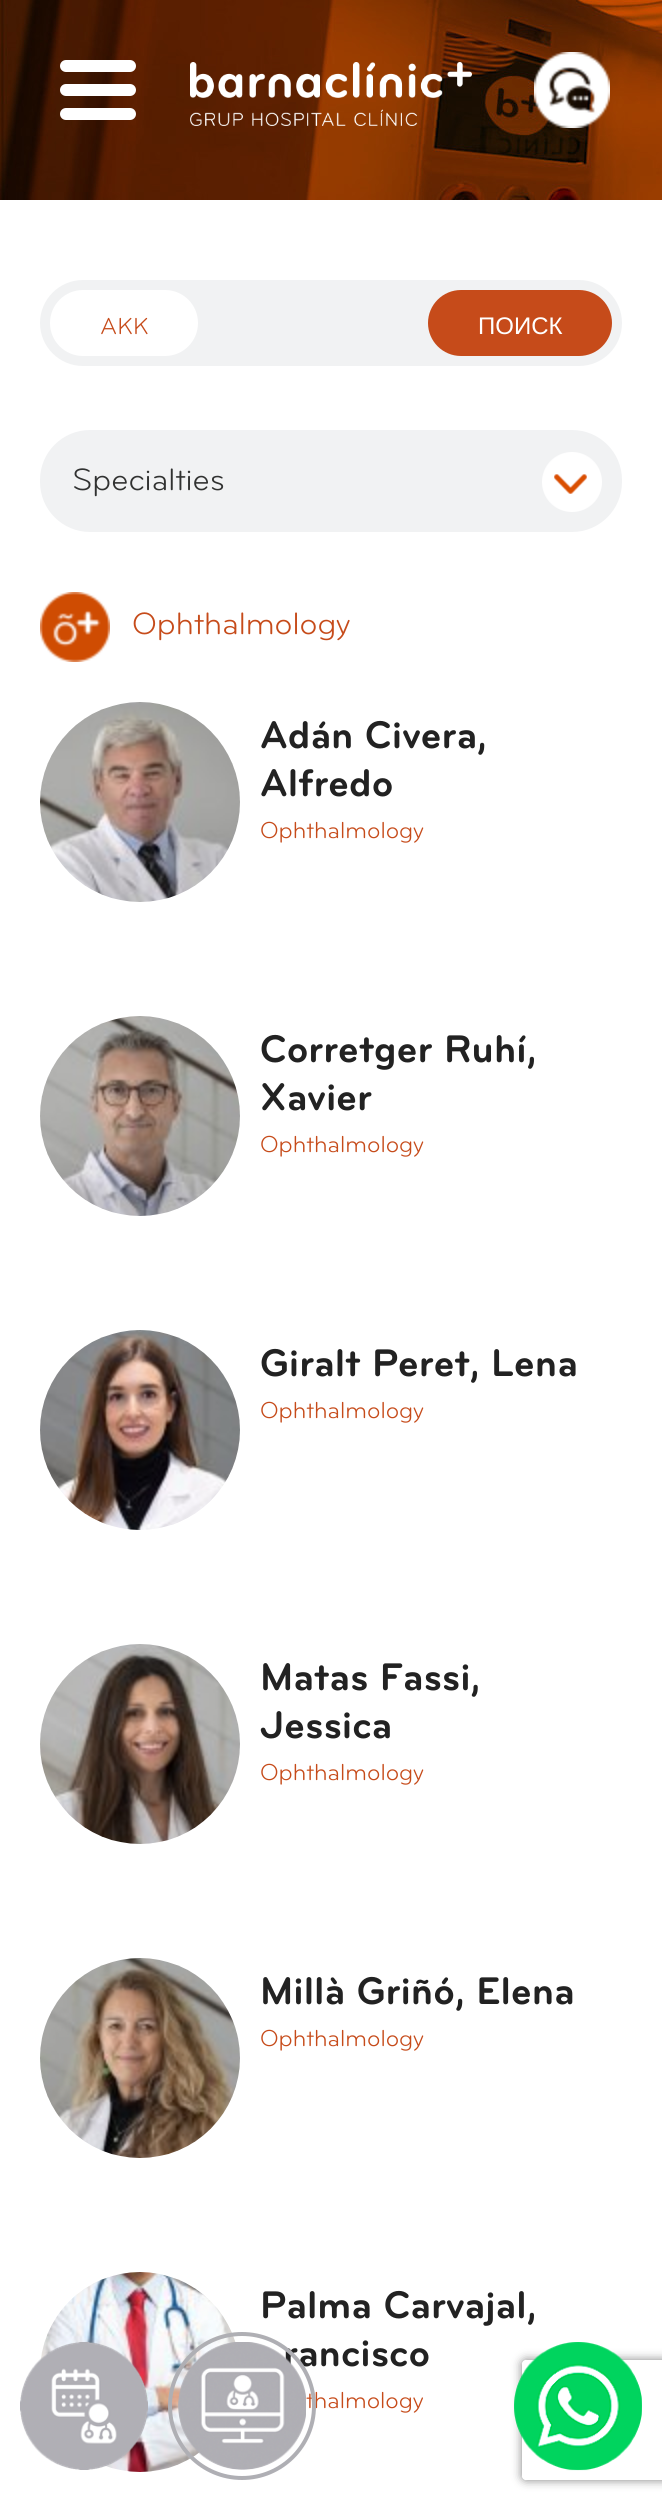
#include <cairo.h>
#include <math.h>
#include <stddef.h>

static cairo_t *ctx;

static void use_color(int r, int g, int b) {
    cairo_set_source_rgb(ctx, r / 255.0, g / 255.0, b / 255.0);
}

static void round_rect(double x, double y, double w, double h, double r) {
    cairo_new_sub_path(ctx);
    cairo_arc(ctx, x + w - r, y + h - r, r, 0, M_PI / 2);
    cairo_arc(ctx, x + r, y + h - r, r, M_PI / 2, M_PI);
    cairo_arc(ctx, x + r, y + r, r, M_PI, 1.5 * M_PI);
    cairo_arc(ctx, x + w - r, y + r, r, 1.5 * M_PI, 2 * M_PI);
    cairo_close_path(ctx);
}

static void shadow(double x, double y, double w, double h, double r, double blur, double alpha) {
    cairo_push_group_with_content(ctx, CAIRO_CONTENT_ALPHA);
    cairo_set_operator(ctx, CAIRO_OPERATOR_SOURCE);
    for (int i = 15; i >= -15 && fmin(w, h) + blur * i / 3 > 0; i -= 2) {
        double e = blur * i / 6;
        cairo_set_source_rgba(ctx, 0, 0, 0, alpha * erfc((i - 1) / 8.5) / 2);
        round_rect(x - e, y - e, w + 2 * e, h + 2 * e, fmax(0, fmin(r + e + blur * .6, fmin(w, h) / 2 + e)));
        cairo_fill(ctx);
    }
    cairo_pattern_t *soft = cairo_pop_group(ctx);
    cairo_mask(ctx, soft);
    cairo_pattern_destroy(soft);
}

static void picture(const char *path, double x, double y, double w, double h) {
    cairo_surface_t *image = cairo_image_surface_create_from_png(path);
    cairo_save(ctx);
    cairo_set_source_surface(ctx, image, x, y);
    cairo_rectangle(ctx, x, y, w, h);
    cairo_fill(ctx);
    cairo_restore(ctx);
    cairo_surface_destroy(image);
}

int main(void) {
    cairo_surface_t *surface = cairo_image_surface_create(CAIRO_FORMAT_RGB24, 662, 2508);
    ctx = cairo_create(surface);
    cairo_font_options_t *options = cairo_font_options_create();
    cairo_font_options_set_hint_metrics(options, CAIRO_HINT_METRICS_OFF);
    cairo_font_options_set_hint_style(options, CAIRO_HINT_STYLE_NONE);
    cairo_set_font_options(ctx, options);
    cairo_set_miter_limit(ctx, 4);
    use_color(255, 255, 255);
    cairo_paint(ctx);
    picture("img1.png", 0, 0, 662, 200);
    use_color(255, 255, 255);
    round_rect(60, 84, 76, 12, 6);
    cairo_fill(ctx);
    round_rect(60, 60, 76, 12, 6);
    cairo_fill(ctx);
    round_rect(60, 108, 76, 12, 6);
    cairo_fill(ctx);
    picture("img2.png", 190, 62, 282, 64);
    picture("img3.png", 534, 52, 76, 76);
    use_color(241, 242, 243);
    round_rect(40, 280, 582, 86, 43);
    cairo_fill(ctx);
    use_color(255, 255, 255);
    round_rect(50, 290, 148, 66, 33);
    cairo_fill(ctx);
    cairo_select_font_face(ctx, "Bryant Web", CAIRO_FONT_SLANT_NORMAL, CAIRO_FONT_WEIGHT_NORMAL);
    cairo_set_font_size(ctx, 24);
    use_color(198, 75, 26);
    cairo_move_to(ctx, 100, 334);
    cairo_show_text(ctx, "AKK");
    round_rect(428, 290, 184, 66, 33);
    cairo_fill(ctx);
    cairo_select_font_face(ctx, "Liberation Sans", CAIRO_FONT_SLANT_NORMAL, CAIRO_FONT_WEIGHT_NORMAL);
    use_color(255, 255, 255);
    cairo_move_to(ctx, 478, 334);
    cairo_show_text(ctx, "ПОИСК");
    use_color(241, 242, 243);
    round_rect(40, 430, 582, 102, 50);
    cairo_fill(ctx);
    cairo_select_font_face(ctx, "Bryant Web", CAIRO_FONT_SLANT_NORMAL, CAIRO_FONT_WEIGHT_NORMAL);
    cairo_set_font_size(ctx, 32);
    use_color(49, 50, 49);
    cairo_move_to(ctx, 72, 490);
    cairo_show_text(ctx, "Specialties");
    picture("img4.png", 542, 452, 60, 60);
    picture("img5.png", 40, 592, 70, 70);
    use_color(198, 75, 26);
    cairo_move_to(ctx, 132, 634);
    cairo_show_text(ctx, "Ophthalmology");
    picture("img6.png", 40, 702, 200, 200);
    cairo_select_font_face(ctx, "Bryant Web", CAIRO_FONT_SLANT_NORMAL, CAIRO_FONT_WEIGHT_BOLD);
    cairo_set_font_size(ctx, 40);
    use_color(34, 34, 34);
    cairo_move_to(ctx, 260, 748);
    cairo_show_text(ctx, "Adán Civera,");
    cairo_move_to(ctx, 260, 796);
    cairo_show_text(ctx, "Alfredo");
    cairo_select_font_face(ctx, "Bryant Web", CAIRO_FONT_SLANT_NORMAL, CAIRO_FONT_WEIGHT_NORMAL);
    cairo_set_font_size(ctx, 24);
    use_color(198, 75, 26);
    cairo_move_to(ctx, 260, 838);
    cairo_show_text(ctx, "Ophthalmology");
    picture("img7.png", 40, 1016, 200, 200);
    cairo_select_font_face(ctx, "Bryant Web", CAIRO_FONT_SLANT_NORMAL, CAIRO_FONT_WEIGHT_BOLD);
    cairo_set_font_size(ctx, 40);
    use_color(34, 34, 34);
    cairo_move_to(ctx, 260, 1062);
    cairo_show_text(ctx, "Corretger Ruhí,");
    cairo_move_to(ctx, 260, 1110);
    cairo_show_text(ctx, "Xavier");
    cairo_select_font_face(ctx, "Bryant Web", CAIRO_FONT_SLANT_NORMAL, CAIRO_FONT_WEIGHT_NORMAL);
    cairo_set_font_size(ctx, 24);
    use_color(198, 75, 26);
    cairo_move_to(ctx, 260, 1152);
    cairo_show_text(ctx, "Ophthalmology");
    picture("img8.png", 40, 1330, 200, 200);
    cairo_select_font_face(ctx, "Bryant Web", CAIRO_FONT_SLANT_NORMAL, CAIRO_FONT_WEIGHT_BOLD);
    cairo_set_font_size(ctx, 40);
    use_color(34, 34, 34);
    cairo_move_to(ctx, 260, 1376);
    cairo_show_text(ctx, "Giralt Peret, Lena");
    cairo_select_font_face(ctx, "Bryant Web", CAIRO_FONT_SLANT_NORMAL, CAIRO_FONT_WEIGHT_NORMAL);
    cairo_set_font_size(ctx, 24);
    use_color(198, 75, 26);
    cairo_move_to(ctx, 260, 1418);
    cairo_show_text(ctx, "Ophthalmology");
    picture("img9.png", 40, 1644, 200, 200);
    cairo_select_font_face(ctx, "Bryant Web", CAIRO_FONT_SLANT_NORMAL, CAIRO_FONT_WEIGHT_BOLD);
    cairo_set_font_size(ctx, 40);
    use_color(34, 34, 34);
    cairo_move_to(ctx, 260, 1690);
    cairo_show_text(ctx, "Matas Fassi,");
    cairo_move_to(ctx, 260, 1738);
    cairo_show_text(ctx, "Jessica");
    cairo_select_font_face(ctx, "Bryant Web", CAIRO_FONT_SLANT_NORMAL, CAIRO_FONT_WEIGHT_NORMAL);
    cairo_set_font_size(ctx, 24);
    use_color(198, 75, 26);
    cairo_move_to(ctx, 260, 1780);
    cairo_show_text(ctx, "Ophthalmology");
    picture("img10.png", 40, 1958, 200, 200);
    cairo_select_font_face(ctx, "Bryant Web", CAIRO_FONT_SLANT_NORMAL, CAIRO_FONT_WEIGHT_BOLD);
    cairo_set_font_size(ctx, 40);
    use_color(34, 34, 34);
    cairo_move_to(ctx, 260, 2004);
    cairo_show_text(ctx, "Millà Griñó, Elena");
    cairo_select_font_face(ctx, "Bryant Web", CAIRO_FONT_SLANT_NORMAL, CAIRO_FONT_WEIGHT_NORMAL);
    cairo_set_font_size(ctx, 24);
    use_color(198, 75, 26);
    cairo_move_to(ctx, 260, 2046);
    cairo_show_text(ctx, "Ophthalmology");
    picture("img11.png", 40, 2272, 196, 200);
    cairo_select_font_face(ctx, "Bryant Web", CAIRO_FONT_SLANT_NORMAL, CAIRO_FONT_WEIGHT_BOLD);
    cairo_set_font_size(ctx, 40);
    use_color(34, 34, 34);
    cairo_move_to(ctx, 260, 2318);
    cairo_show_text(ctx, "Palma Carvajal,");
    cairo_move_to(ctx, 283, 2366);
    cairo_show_text(ctx, "rancisco");
    cairo_select_font_face(ctx, "Bryant Web", CAIRO_FONT_SLANT_NORMAL, CAIRO_FONT_WEIGHT_NORMAL);
    cairo_set_font_size(ctx, 24);
    use_color(198, 75, 26);
    cairo_move_to(ctx, 306, 2408);
    cairo_show_text(ctx, "thalmology");
    picture("img12.png", 20, 2342, 128, 128);
    picture("img13.png", 178, 2342, 128, 128);
    cairo_arc(ctx, 242, 2406, 72, 0, 2 * M_PI);
    use_color(175, 175, 180);
    cairo_set_line_width(ctx, 4);
    cairo_stroke(ctx);
    cairo_save(ctx);
    cairo_set_fill_rule(ctx, CAIRO_FILL_RULE_EVEN_ODD);
    cairo_new_path(ctx);
    cairo_move_to(ctx, 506, 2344);
    cairo_line_to(ctx, 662, 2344);
    cairo_line_to(ctx, 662, 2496);
    cairo_line_to(ctx, 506, 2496);
    cairo_close_path(ctx);
    cairo_move_to(ctx, 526, 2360);
    cairo_line_to(ctx, 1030, 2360);
    cairo_curve_to(ctx, 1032, 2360, 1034, 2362, 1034, 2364);
    cairo_line_to(ctx, 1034, 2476);
    cairo_curve_to(ctx, 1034, 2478, 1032, 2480, 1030, 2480);
    cairo_line_to(ctx, 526, 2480);
    cairo_curve_to(ctx, 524, 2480, 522, 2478, 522, 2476);
    cairo_line_to(ctx, 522, 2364);
    cairo_curve_to(ctx, 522, 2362, 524, 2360, 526, 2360);
    cairo_close_path(ctx);
    cairo_clip(ctx);
    use_color(128, 128, 128);
    shadow(522, 2360, 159, 120, 4, 5, 1);
    cairo_restore(ctx);
    picture("img14.png", 514, 2342, 128, 129);
    cairo_surface_write_to_png(surface, "result.png");
    cairo_font_options_destroy(options);
    cairo_destroy(ctx);
    cairo_surface_destroy(surface);
    return 0;
}
